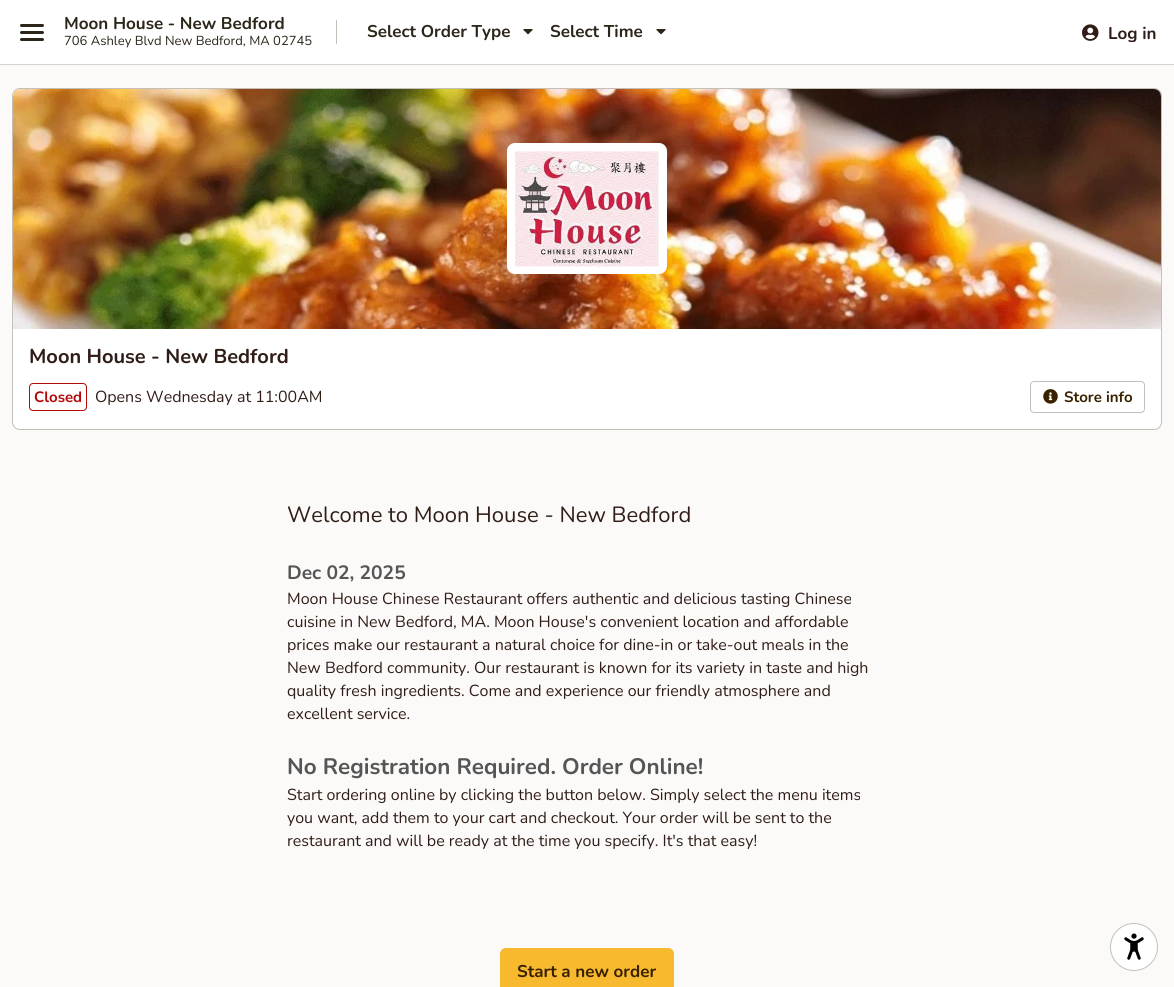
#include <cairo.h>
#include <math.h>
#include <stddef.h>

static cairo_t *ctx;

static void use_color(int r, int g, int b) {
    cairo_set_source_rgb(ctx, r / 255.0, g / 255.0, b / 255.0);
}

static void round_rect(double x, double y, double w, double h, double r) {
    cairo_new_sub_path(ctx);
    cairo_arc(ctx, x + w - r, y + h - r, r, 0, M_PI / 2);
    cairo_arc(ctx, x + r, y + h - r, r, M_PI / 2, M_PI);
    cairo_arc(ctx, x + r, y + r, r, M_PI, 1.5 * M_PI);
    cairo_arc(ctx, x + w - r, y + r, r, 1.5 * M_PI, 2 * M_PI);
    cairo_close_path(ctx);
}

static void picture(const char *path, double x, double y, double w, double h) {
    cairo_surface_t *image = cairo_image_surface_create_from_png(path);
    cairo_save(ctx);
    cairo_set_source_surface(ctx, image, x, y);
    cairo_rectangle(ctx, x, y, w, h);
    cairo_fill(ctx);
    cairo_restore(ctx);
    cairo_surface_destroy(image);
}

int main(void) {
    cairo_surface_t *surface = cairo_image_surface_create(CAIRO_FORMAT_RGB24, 1174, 987);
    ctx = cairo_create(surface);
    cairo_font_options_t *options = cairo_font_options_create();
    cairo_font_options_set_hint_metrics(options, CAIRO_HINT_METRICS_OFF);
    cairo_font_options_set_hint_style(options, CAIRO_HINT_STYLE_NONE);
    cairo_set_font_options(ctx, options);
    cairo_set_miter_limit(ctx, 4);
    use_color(251, 250, 249);
    cairo_paint(ctx);
    use_color(215, 212, 205);
    cairo_rectangle(ctx, 0, 64, 1174, 1);
    cairo_fill(ctx);
    use_color(255, 255, 255);
    cairo_rectangle(ctx, 0, 0, 1174, 64);
    cairo_fill(ctx);
    use_color(44, 38, 26);
    round_rect(20, 24, 24, 3, 1.5);
    cairo_fill(ctx);
    round_rect(20, 31, 24, 3, 1.5);
    cairo_fill(ctx);
    round_rect(20, 38, 24, 3, 1.5);
    cairo_fill(ctx);
    cairo_select_font_face(ctx, "Nunito", CAIRO_FONT_SLANT_NORMAL, CAIRO_FONT_WEIGHT_BOLD);
    cairo_set_font_size(ctx, 17);
    cairo_move_to(ctx, 64, 29);
    cairo_show_text(ctx, "Moon House - New Bedford");
    cairo_select_font_face(ctx, "Nunito", CAIRO_FONT_SLANT_NORMAL, CAIRO_FONT_WEIGHT_NORMAL);
    cairo_set_font_size(ctx, 13);
    cairo_move_to(ctx, 64, 45);
    cairo_show_text(ctx, "706 Ashley Blvd New Bedford, MA 02745");
    use_color(196, 192, 183);
    cairo_rectangle(ctx, 336, 20, 1, 24);
    cairo_fill(ctx);
    cairo_select_font_face(ctx, "Nunito", CAIRO_FONT_SLANT_NORMAL, CAIRO_FONT_WEIGHT_BOLD);
    cairo_set_font_size(ctx, 17);
    use_color(44, 38, 26);
    cairo_move_to(ctx, 367, 37);
    cairo_show_text(ctx, "Select Order Type");
    picture("img1.png", 523, 29, 10, 6);
    cairo_move_to(ctx, 550, 37);
    cairo_show_text(ctx, "Select Time");
    picture("img1.png", 656, 29, 10, 6);
    picture("img2.png", 1082, 24, 17, 17);
    cairo_save(ctx);
    cairo_rectangle(ctx, 1108, 25, 49, 17);
    cairo_clip(ctx);
    use_color(48, 29, 23);
    cairo_move_to(ctx, 1108, 39);
    cairo_show_text(ctx, "Log in");
    cairo_restore(ctx);
    use_color(255, 255, 255);
    round_rect(12, 88, 1150, 342, 8);
    cairo_fill(ctx);
    round_rect(12.5, 88.5, 1149, 341, 7.5);
    cairo_set_source_rgba(ctx, 0.58, 0.553, 0.486, 0.55);
    cairo_set_line_width(ctx, 1);
    cairo_stroke(ctx);
    picture("img3.png", 13, 89, 1148, 240);
    use_color(255, 255, 255);
    round_rect(507, 143, 160, 131, 8);
    cairo_fill(ctx);
    picture("img4.png", 515, 151, 144, 116);
    cairo_set_font_size(ctx, 20);
    use_color(48, 29, 23);
    cairo_move_to(ctx, 29, 363);
    cairo_show_text(ctx, "Moon House - New Bedford");
    round_rect(29.5, 383.5, 57, 27, 3.5);
    use_color(179, 9, 9);
    cairo_stroke(ctx);
    cairo_set_font_size(ctx, 15);
    cairo_move_to(ctx, 34, 402);
    cairo_show_text(ctx, "Closed");
    cairo_select_font_face(ctx, "Nunito", CAIRO_FONT_SLANT_NORMAL, CAIRO_FONT_WEIGHT_NORMAL);
    cairo_set_font_size(ctx, 16);
    use_color(48, 29, 23);
    cairo_move_to(ctx, 95, 402);
    cairo_show_text(ctx, "Opens Wednesday at 11:00AM");
    round_rect(1030.5, 381.5, 114, 31, 3.5);
    use_color(196, 192, 183);
    cairo_stroke(ctx);
    picture("img5.png", 1043, 389, 15, 15);
    cairo_select_font_face(ctx, "Nunito", CAIRO_FONT_SLANT_NORMAL, CAIRO_FONT_WEIGHT_BOLD);
    cairo_set_font_size(ctx, 15);
    use_color(57, 33, 0);
    cairo_move_to(ctx, 1064, 402);
    cairo_show_text(ctx, "Store info");
    cairo_select_font_face(ctx, "Nunito", CAIRO_FONT_SLANT_NORMAL, CAIRO_FONT_WEIGHT_NORMAL);
    cairo_set_font_size(ctx, 22);
    use_color(48, 29, 23);
    cairo_move_to(ctx, 287, 522);
    cairo_show_text(ctx, "Welcome to Moon House - New Bedford");
    cairo_select_font_face(ctx, "Nunito", CAIRO_FONT_SLANT_NORMAL, CAIRO_FONT_WEIGHT_BOLD);
    cairo_set_font_size(ctx, 19.25);
    use_color(85, 85, 85);
    cairo_move_to(ctx, 287, 579);
    cairo_show_text(ctx, "Dec 02, 2025");
    cairo_select_font_face(ctx, "Nunito", CAIRO_FONT_SLANT_NORMAL, CAIRO_FONT_WEIGHT_NORMAL);
    cairo_set_font_size(ctx, 16);
    use_color(48, 29, 23);
    cairo_move_to(ctx, 287, 604);
    cairo_show_text(ctx, "Moon House Chinese Restaurant offers authentic and delicious tasting Chinese");
    cairo_move_to(ctx, 287, 627);
    cairo_show_text(ctx, "cuisine in New Bedford, MA. Moon House's convenient location and affordable");
    cairo_move_to(ctx, 287, 650);
    cairo_show_text(ctx, "prices make our restaurant a natural choice for dine-in or take-out meals in the");
    cairo_move_to(ctx, 287, 673);
    cairo_show_text(ctx, "New Bedford community. Our restaurant is known for its variety in taste and high");
    cairo_move_to(ctx, 287, 696);
    cairo_show_text(ctx, "quality fresh ingredients. Come and experience our friendly atmosphere and");
    cairo_move_to(ctx, 287, 719);
    cairo_show_text(ctx, "excellent service.");
    cairo_select_font_face(ctx, "Nunito", CAIRO_FONT_SLANT_NORMAL, CAIRO_FONT_WEIGHT_BOLD);
    cairo_set_font_size(ctx, 22.4);
    use_color(85, 85, 85);
    cairo_move_to(ctx, 287, 774);
    cairo_show_text(ctx, "No Registration Required. Order Online!");
    cairo_select_font_face(ctx, "Nunito", CAIRO_FONT_SLANT_NORMAL, CAIRO_FONT_WEIGHT_NORMAL);
    cairo_set_font_size(ctx, 16);
    use_color(48, 29, 23);
    cairo_move_to(ctx, 287, 800);
    cairo_show_text(ctx, "Start ordering online by clicking the button below. Simply select the menu items");
    cairo_move_to(ctx, 287, 823);
    cairo_show_text(ctx, "you want, add them to your cart and checkout. Your order will be sent to the");
    cairo_move_to(ctx, 287, 846);
    cairo_show_text(ctx, "restaurant and will be ready at the time you specify. It's that easy!");
    use_color(247, 185, 46);
    round_rect(500.5, 948.5, 173, 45, 5.5);
    cairo_fill_preserve(ctx);
    cairo_stroke(ctx);
    cairo_select_font_face(ctx, "Nunito", CAIRO_FONT_SLANT_NORMAL, CAIRO_FONT_WEIGHT_BOLD);
    cairo_set_font_size(ctx, 17);
    use_color(57, 33, 0);
    cairo_move_to(ctx, 517, 977);
    cairo_show_text(ctx, "Start a new order");
    use_color(255, 255, 255);
    cairo_new_path(ctx);
    cairo_arc(ctx, 1134, 947, 24, 0, 2 * M_PI);
    cairo_fill(ctx);
    cairo_arc(ctx, 1134, 947, 23.5, 0, 2 * M_PI);
    cairo_set_source_rgba(ctx, 0.58, 0.553, 0.486, 0.55);
    cairo_stroke(ctx);
    picture("img6.png", 1124, 933, 20, 27);
    cairo_surface_write_to_png(surface, "result.png");
    cairo_font_options_destroy(options);
    cairo_destroy(ctx);
    cairo_surface_destroy(surface);
    return 0;
}
